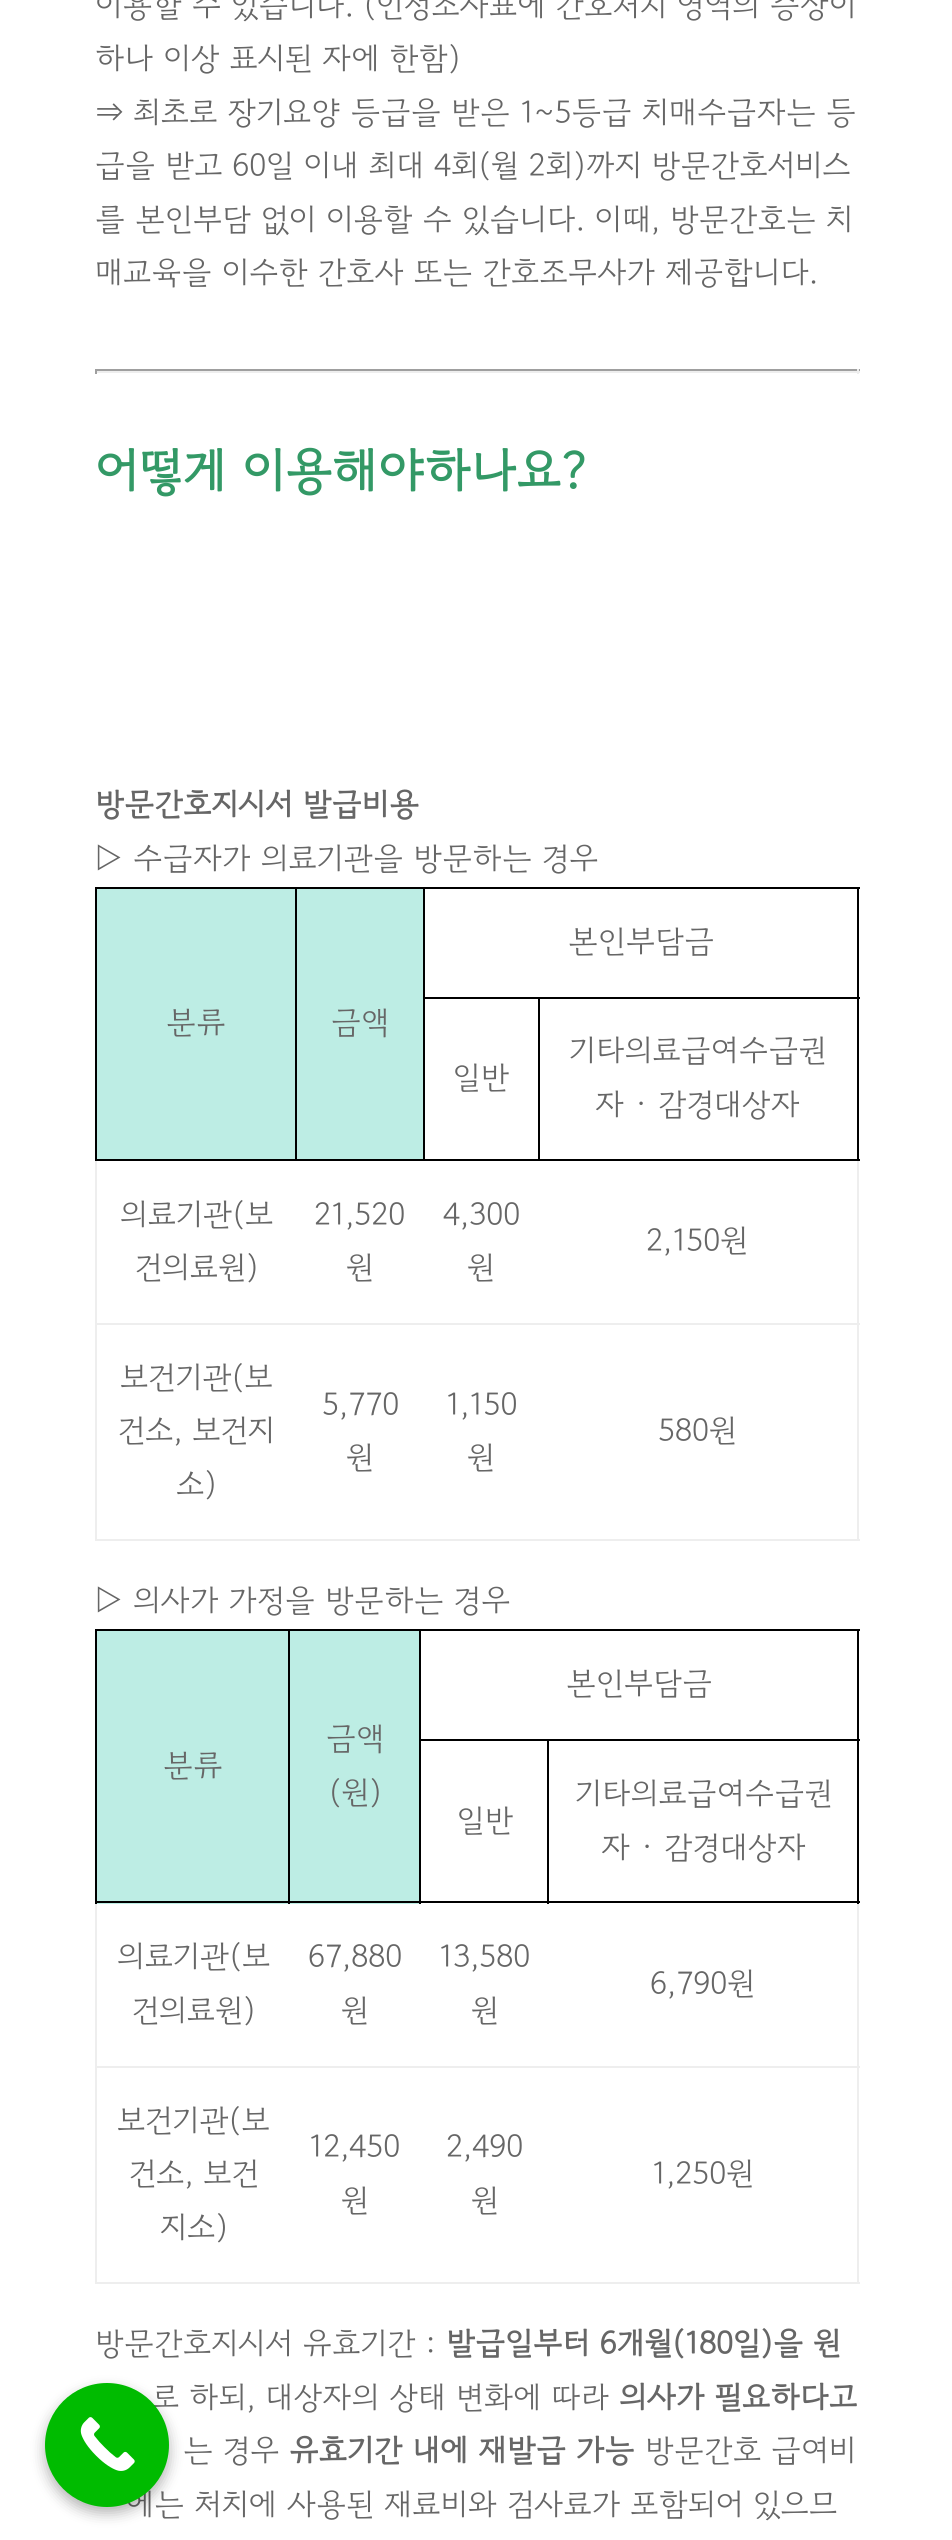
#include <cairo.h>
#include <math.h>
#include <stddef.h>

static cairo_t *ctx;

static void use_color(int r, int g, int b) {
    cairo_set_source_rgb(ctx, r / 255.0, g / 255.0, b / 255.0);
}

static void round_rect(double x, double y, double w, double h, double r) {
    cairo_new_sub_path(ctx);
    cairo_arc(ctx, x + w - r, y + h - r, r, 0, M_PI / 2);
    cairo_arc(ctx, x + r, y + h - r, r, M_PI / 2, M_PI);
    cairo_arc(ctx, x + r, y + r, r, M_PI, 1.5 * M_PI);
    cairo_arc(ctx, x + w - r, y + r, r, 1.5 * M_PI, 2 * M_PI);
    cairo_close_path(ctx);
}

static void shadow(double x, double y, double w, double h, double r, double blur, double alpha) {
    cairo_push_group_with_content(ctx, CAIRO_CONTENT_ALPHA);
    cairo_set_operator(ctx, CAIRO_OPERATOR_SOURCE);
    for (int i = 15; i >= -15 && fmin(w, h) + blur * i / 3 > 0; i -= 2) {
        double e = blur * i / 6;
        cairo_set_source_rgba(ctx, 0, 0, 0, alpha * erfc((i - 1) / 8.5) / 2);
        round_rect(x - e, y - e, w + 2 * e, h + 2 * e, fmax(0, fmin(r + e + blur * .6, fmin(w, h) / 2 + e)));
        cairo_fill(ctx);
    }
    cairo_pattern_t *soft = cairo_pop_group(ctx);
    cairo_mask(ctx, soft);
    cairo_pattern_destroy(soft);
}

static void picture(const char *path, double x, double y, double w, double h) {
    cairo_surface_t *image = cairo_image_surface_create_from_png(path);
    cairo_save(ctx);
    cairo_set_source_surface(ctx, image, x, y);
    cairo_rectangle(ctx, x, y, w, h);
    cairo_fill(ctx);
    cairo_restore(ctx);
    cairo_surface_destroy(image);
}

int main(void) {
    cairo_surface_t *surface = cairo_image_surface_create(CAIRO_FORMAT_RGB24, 952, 2540);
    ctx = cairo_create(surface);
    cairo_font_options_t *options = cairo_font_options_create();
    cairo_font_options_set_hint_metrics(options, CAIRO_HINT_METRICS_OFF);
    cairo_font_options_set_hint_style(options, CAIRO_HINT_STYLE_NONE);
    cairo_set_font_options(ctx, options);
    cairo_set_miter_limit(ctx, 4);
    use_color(255, 255, 255);
    cairo_paint(ctx);
    cairo_select_font_face(ctx, "Gowun Dodum", CAIRO_FONT_SLANT_NORMAL, CAIRO_FONT_WEIGHT_NORMAL);
    cairo_set_font_size(ctx, 31.5);
    use_color(102, 102, 102);
    cairo_move_to(ctx, 95, 18);
    cairo_show_text(ctx, "이용할 수 있습니다. (인정조사표에 간호처치 영역의 증상이");
    cairo_move_to(ctx, 95, 71);
    cairo_show_text(ctx, "하나 이상 표시된 자에 한함)");
    cairo_move_to(ctx, 95, 125);
    cairo_show_text(ctx, "⇒ 최초로 장기요양 등급을 받은 1~5등급 치매수급자는 등");
    cairo_move_to(ctx, 95, 178);
    cairo_show_text(ctx, "급을 받고 60일 이내 최대 4회(월 2회)까지 방문간호서비스");
    cairo_move_to(ctx, 95, 232);
    cairo_show_text(ctx, "를 본인부담 없이 이용할 수 있습니다. 이때, 방문간호는 치");
    cairo_move_to(ctx, 95, 285);
    cairo_show_text(ctx, "매교육을 이수한 간호사 또는 간호조무사가 제공합니다.");
    use_color(159, 159, 159);
    cairo_rectangle(ctx, 95, 369, 765, 2);
    cairo_fill(ctx);
    use_color(238, 238, 238);
    cairo_rectangle(ctx, 857, 369, 2, 5);
    cairo_fill(ctx);
    cairo_rectangle(ctx, 95, 371, 765, 2);
    cairo_fill(ctx);
    use_color(159, 159, 159);
    cairo_rectangle(ctx, 95, 369, 2, 5);
    cairo_fill(ctx);
    cairo_select_font_face(ctx, "Gowun Dodum", CAIRO_FONT_SLANT_NORMAL, CAIRO_FONT_WEIGHT_BOLD);
    cairo_set_font_size(ctx, 49.5);
    use_color(51, 153, 102);
    cairo_move_to(ctx, 95, 491);
    cairo_show_text(ctx, "어떻게 이용해야하나요?");
    cairo_set_font_size(ctx, 31.5);
    use_color(102, 102, 102);
    cairo_move_to(ctx, 95, 817);
    cairo_show_text(ctx, "방문간호지시서 발급비용");
    cairo_select_font_face(ctx, "Gowun Dodum", CAIRO_FONT_SLANT_NORMAL, CAIRO_FONT_WEIGHT_NORMAL);
    cairo_move_to(ctx, 95, 871);
    cairo_show_text(ctx, "▷ 수급자가 의료기관을 방문하는 경우");
    use_color(238, 238, 238);
    cairo_rectangle(ctx, 857, 1161, 2, 380);
    cairo_fill(ctx);
    cairo_rectangle(ctx, 95, 1539, 765, 2);
    cairo_fill(ctx);
    cairo_rectangle(ctx, 95, 1161, 2, 380);
    cairo_fill(ctx);
    use_color(0, 0, 0);
    cairo_rectangle(ctx, 295, 887, 565, 2);
    cairo_fill(ctx);
    cairo_rectangle(ctx, 423, 997, 437, 2);
    cairo_fill(ctx);
    cairo_rectangle(ctx, 857, 997, 2, 164);
    cairo_fill(ctx);
    cairo_rectangle(ctx, 857, 887, 2, 112);
    cairo_fill(ctx);
    use_color(102, 102, 102);
    cairo_move_to(ctx, 568, 954);
    cairo_show_text(ctx, "본인부담금");
    use_color(189, 237, 228);
    cairo_rectangle(ctx, 97, 889, 198, 270);
    cairo_fill(ctx);
    use_color(0, 0, 0);
    cairo_rectangle(ctx, 538, 1159, 322, 2);
    cairo_fill(ctx);
    cairo_rectangle(ctx, 538, 997, 2, 164);
    cairo_fill(ctx);
    cairo_rectangle(ctx, 423, 1159, 117, 2);
    cairo_fill(ctx);
    cairo_rectangle(ctx, 423, 887, 2, 274);
    cairo_fill(ctx);
    cairo_rectangle(ctx, 295, 1159, 130, 2);
    cairo_fill(ctx);
    cairo_rectangle(ctx, 295, 887, 2, 274);
    cairo_fill(ctx);
    cairo_rectangle(ctx, 95, 887, 202, 2);
    cairo_fill(ctx);
    cairo_rectangle(ctx, 95, 1159, 202, 2);
    cairo_fill(ctx);
    cairo_rectangle(ctx, 95, 887, 2, 274);
    cairo_fill(ctx);
    use_color(102, 102, 102);
    cairo_move_to(ctx, 166, 1035);
    cairo_show_text(ctx, "분류");
    use_color(189, 237, 228);
    cairo_rectangle(ctx, 297, 889, 126, 270);
    cairo_fill(ctx);
    use_color(102, 102, 102);
    cairo_move_to(ctx, 331, 1035);
    cairo_show_text(ctx, "금액");
    cairo_move_to(ctx, 453, 1090);
    cairo_show_text(ctx, "일반");
    cairo_move_to(ctx, 569, 1063);
    cairo_show_text(ctx, "기타의료급여수급권");
    cairo_move_to(ctx, 595, 1117);
    cairo_show_text(ctx, "자 · 감경대상자");
    cairo_move_to(ctx, 120, 1227);
    cairo_show_text(ctx, "의료기관(보");
    cairo_move_to(ctx, 135, 1280);
    cairo_show_text(ctx, "건의료원)");
    cairo_move_to(ctx, 314, 1227);
    cairo_show_text(ctx, "21,520");
    cairo_move_to(ctx, 346, 1280);
    cairo_show_text(ctx, "원");
    cairo_move_to(ctx, 443, 1227);
    cairo_show_text(ctx, "4,300");
    cairo_move_to(ctx, 467, 1280);
    cairo_show_text(ctx, "원");
    cairo_move_to(ctx, 646, 1253);
    cairo_show_text(ctx, "2,150원");
    cairo_move_to(ctx, 120, 1390);
    cairo_show_text(ctx, "보건기관(보");
    cairo_move_to(ctx, 118, 1443);
    cairo_show_text(ctx, "건소, 보건지");
    cairo_move_to(ctx, 176, 1497);
    cairo_show_text(ctx, "소)");
    cairo_move_to(ctx, 322, 1417);
    cairo_show_text(ctx, "5,770");
    cairo_move_to(ctx, 346, 1470);
    cairo_show_text(ctx, "원");
    cairo_move_to(ctx, 446, 1417);
    cairo_show_text(ctx, "1,150");
    cairo_move_to(ctx, 467, 1470);
    cairo_show_text(ctx, "원");
    use_color(238, 238, 238);
    cairo_rectangle(ctx, 95, 1323, 765, 2);
    cairo_fill(ctx);
    use_color(102, 102, 102);
    cairo_move_to(ctx, 658, 1443);
    cairo_show_text(ctx, "580원");
    cairo_move_to(ctx, 95, 1613);
    cairo_show_text(ctx, "▷ 의사가 가정을 방문하는 경우");
    use_color(238, 238, 238);
    cairo_rectangle(ctx, 857, 1904, 2, 380);
    cairo_fill(ctx);
    cairo_rectangle(ctx, 95, 2282, 765, 2);
    cairo_fill(ctx);
    cairo_rectangle(ctx, 95, 1904, 2, 380);
    cairo_fill(ctx);
    use_color(0, 0, 0);
    cairo_rectangle(ctx, 288, 1629, 572, 2);
    cairo_fill(ctx);
    cairo_rectangle(ctx, 419, 1739, 441, 2);
    cairo_fill(ctx);
    cairo_rectangle(ctx, 857, 1739, 2, 165);
    cairo_fill(ctx);
    cairo_rectangle(ctx, 857, 1629, 2, 113);
    cairo_fill(ctx);
    use_color(102, 102, 102);
    cairo_move_to(ctx, 566, 1696);
    cairo_show_text(ctx, "본인부담금");
    use_color(189, 237, 228);
    cairo_rectangle(ctx, 97, 1631, 191, 273);
    cairo_fill(ctx);
    cairo_rectangle(ctx, 290, 1631, 129, 273);
    cairo_fill(ctx);
    use_color(0, 0, 0);
    cairo_rectangle(ctx, 547, 1901, 313, 2);
    cairo_fill(ctx);
    cairo_rectangle(ctx, 547, 1739, 2, 165);
    cairo_fill(ctx);
    cairo_rectangle(ctx, 419, 1901, 130, 2);
    cairo_fill(ctx);
    cairo_rectangle(ctx, 419, 1629, 2, 275);
    cairo_fill(ctx);
    cairo_rectangle(ctx, 288, 1901, 133, 2);
    cairo_fill(ctx);
    cairo_rectangle(ctx, 288, 1629, 2, 275);
    cairo_fill(ctx);
    cairo_rectangle(ctx, 95, 1629, 195, 2);
    cairo_fill(ctx);
    cairo_rectangle(ctx, 95, 1901, 195, 2);
    cairo_fill(ctx);
    cairo_rectangle(ctx, 95, 1629, 2, 275);
    cairo_fill(ctx);
    use_color(102, 102, 102);
    cairo_move_to(ctx, 163, 1778);
    cairo_show_text(ctx, "분류");
    cairo_move_to(ctx, 326, 1751);
    cairo_show_text(ctx, "금액");
    cairo_move_to(ctx, 329, 1805);
    cairo_show_text(ctx, "(원)");
    cairo_move_to(ctx, 457, 1833);
    cairo_show_text(ctx, "일반");
    cairo_move_to(ctx, 575, 1806);
    cairo_show_text(ctx, "기타의료급여수급권");
    cairo_move_to(ctx, 601, 1860);
    cairo_show_text(ctx, "자 · 감경대상자");
    cairo_move_to(ctx, 117, 1969);
    cairo_show_text(ctx, "의료기관(보");
    cairo_move_to(ctx, 132, 2023);
    cairo_show_text(ctx, "건의료원)");
    cairo_move_to(ctx, 308, 1969);
    cairo_show_text(ctx, "67,880");
    cairo_move_to(ctx, 341, 2023);
    cairo_show_text(ctx, "원");
    cairo_move_to(ctx, 439, 1969);
    cairo_show_text(ctx, "13,580");
    cairo_move_to(ctx, 471, 2023);
    cairo_show_text(ctx, "원");
    cairo_move_to(ctx, 650, 1996);
    cairo_show_text(ctx, "6,790원");
    cairo_move_to(ctx, 117, 2133);
    cairo_show_text(ctx, "보건기관(보");
    cairo_move_to(ctx, 129, 2186);
    cairo_show_text(ctx, "건소, 보건");
    cairo_move_to(ctx, 160, 2240);
    cairo_show_text(ctx, "지소)");
    cairo_move_to(ctx, 309, 2159);
    cairo_show_text(ctx, "12,450");
    cairo_move_to(ctx, 341, 2213);
    cairo_show_text(ctx, "원");
    cairo_move_to(ctx, 446, 2159);
    cairo_show_text(ctx, "2,490");
    cairo_move_to(ctx, 471, 2213);
    cairo_show_text(ctx, "원");
    use_color(238, 238, 238);
    cairo_rectangle(ctx, 95, 2066, 765, 2);
    cairo_fill(ctx);
    use_color(102, 102, 102);
    cairo_move_to(ctx, 652, 2186);
    cairo_show_text(ctx, "1,250원");
    cairo_move_to(ctx, 95, 2356);
    cairo_show_text(ctx, "방문간호지시서 유효기간 :");
    cairo_select_font_face(ctx, "Gowun Dodum", CAIRO_FONT_SLANT_NORMAL, CAIRO_FONT_WEIGHT_BOLD);
    cairo_move_to(ctx, 446, 2356);
    cairo_show_text(ctx, "발급일부터 6개월(180일)을 원");
    cairo_select_font_face(ctx, "Gowun Dodum", CAIRO_FONT_SLANT_NORMAL, CAIRO_FONT_WEIGHT_NORMAL);
    cairo_move_to(ctx, 151, 2410);
    cairo_show_text(ctx, "로 하되, 대상자의 상태 변화에 따라");
    cairo_select_font_face(ctx, "Gowun Dodum", CAIRO_FONT_SLANT_NORMAL, CAIRO_FONT_WEIGHT_BOLD);
    cairo_move_to(ctx, 619, 2410);
    cairo_show_text(ctx, "의사가 필요하다고");
    cairo_select_font_face(ctx, "Gowun Dodum", CAIRO_FONT_SLANT_NORMAL, CAIRO_FONT_WEIGHT_NORMAL);
    cairo_move_to(ctx, 183, 2463);
    cairo_show_text(ctx, "는 경우");
    cairo_select_font_face(ctx, "Gowun Dodum", CAIRO_FONT_SLANT_NORMAL, CAIRO_FONT_WEIGHT_BOLD);
    cairo_move_to(ctx, 289, 2463);
    cairo_show_text(ctx, "유효기간 내에 재발급 가능");
    cairo_select_font_face(ctx, "Gowun Dodum", CAIRO_FONT_SLANT_NORMAL, CAIRO_FONT_WEIGHT_NORMAL);
    cairo_move_to(ctx, 645, 2463);
    cairo_show_text(ctx, "방문간호 급여비");
    cairo_move_to(ctx, 126, 2517);
    cairo_show_text(ctx, "에는 처치에 사용된 재료비와 검사료가 포함되어 있으므");
    use_color(0, 0, 0);
    shadow(45, 2390, 124, 123, 61.5, 7, 0.3);
    use_color(0, 187, 0);
    cairo_arc(ctx, 107, 2445, 62, 0, 2 * M_PI);
    cairo_fill(ctx);
    picture("img1.png", 80, 2417, 55, 54);
    cairo_surface_write_to_png(surface, "result.png");
    cairo_font_options_destroy(options);
    cairo_destroy(ctx);
    cairo_surface_destroy(surface);
    return 0;
}
